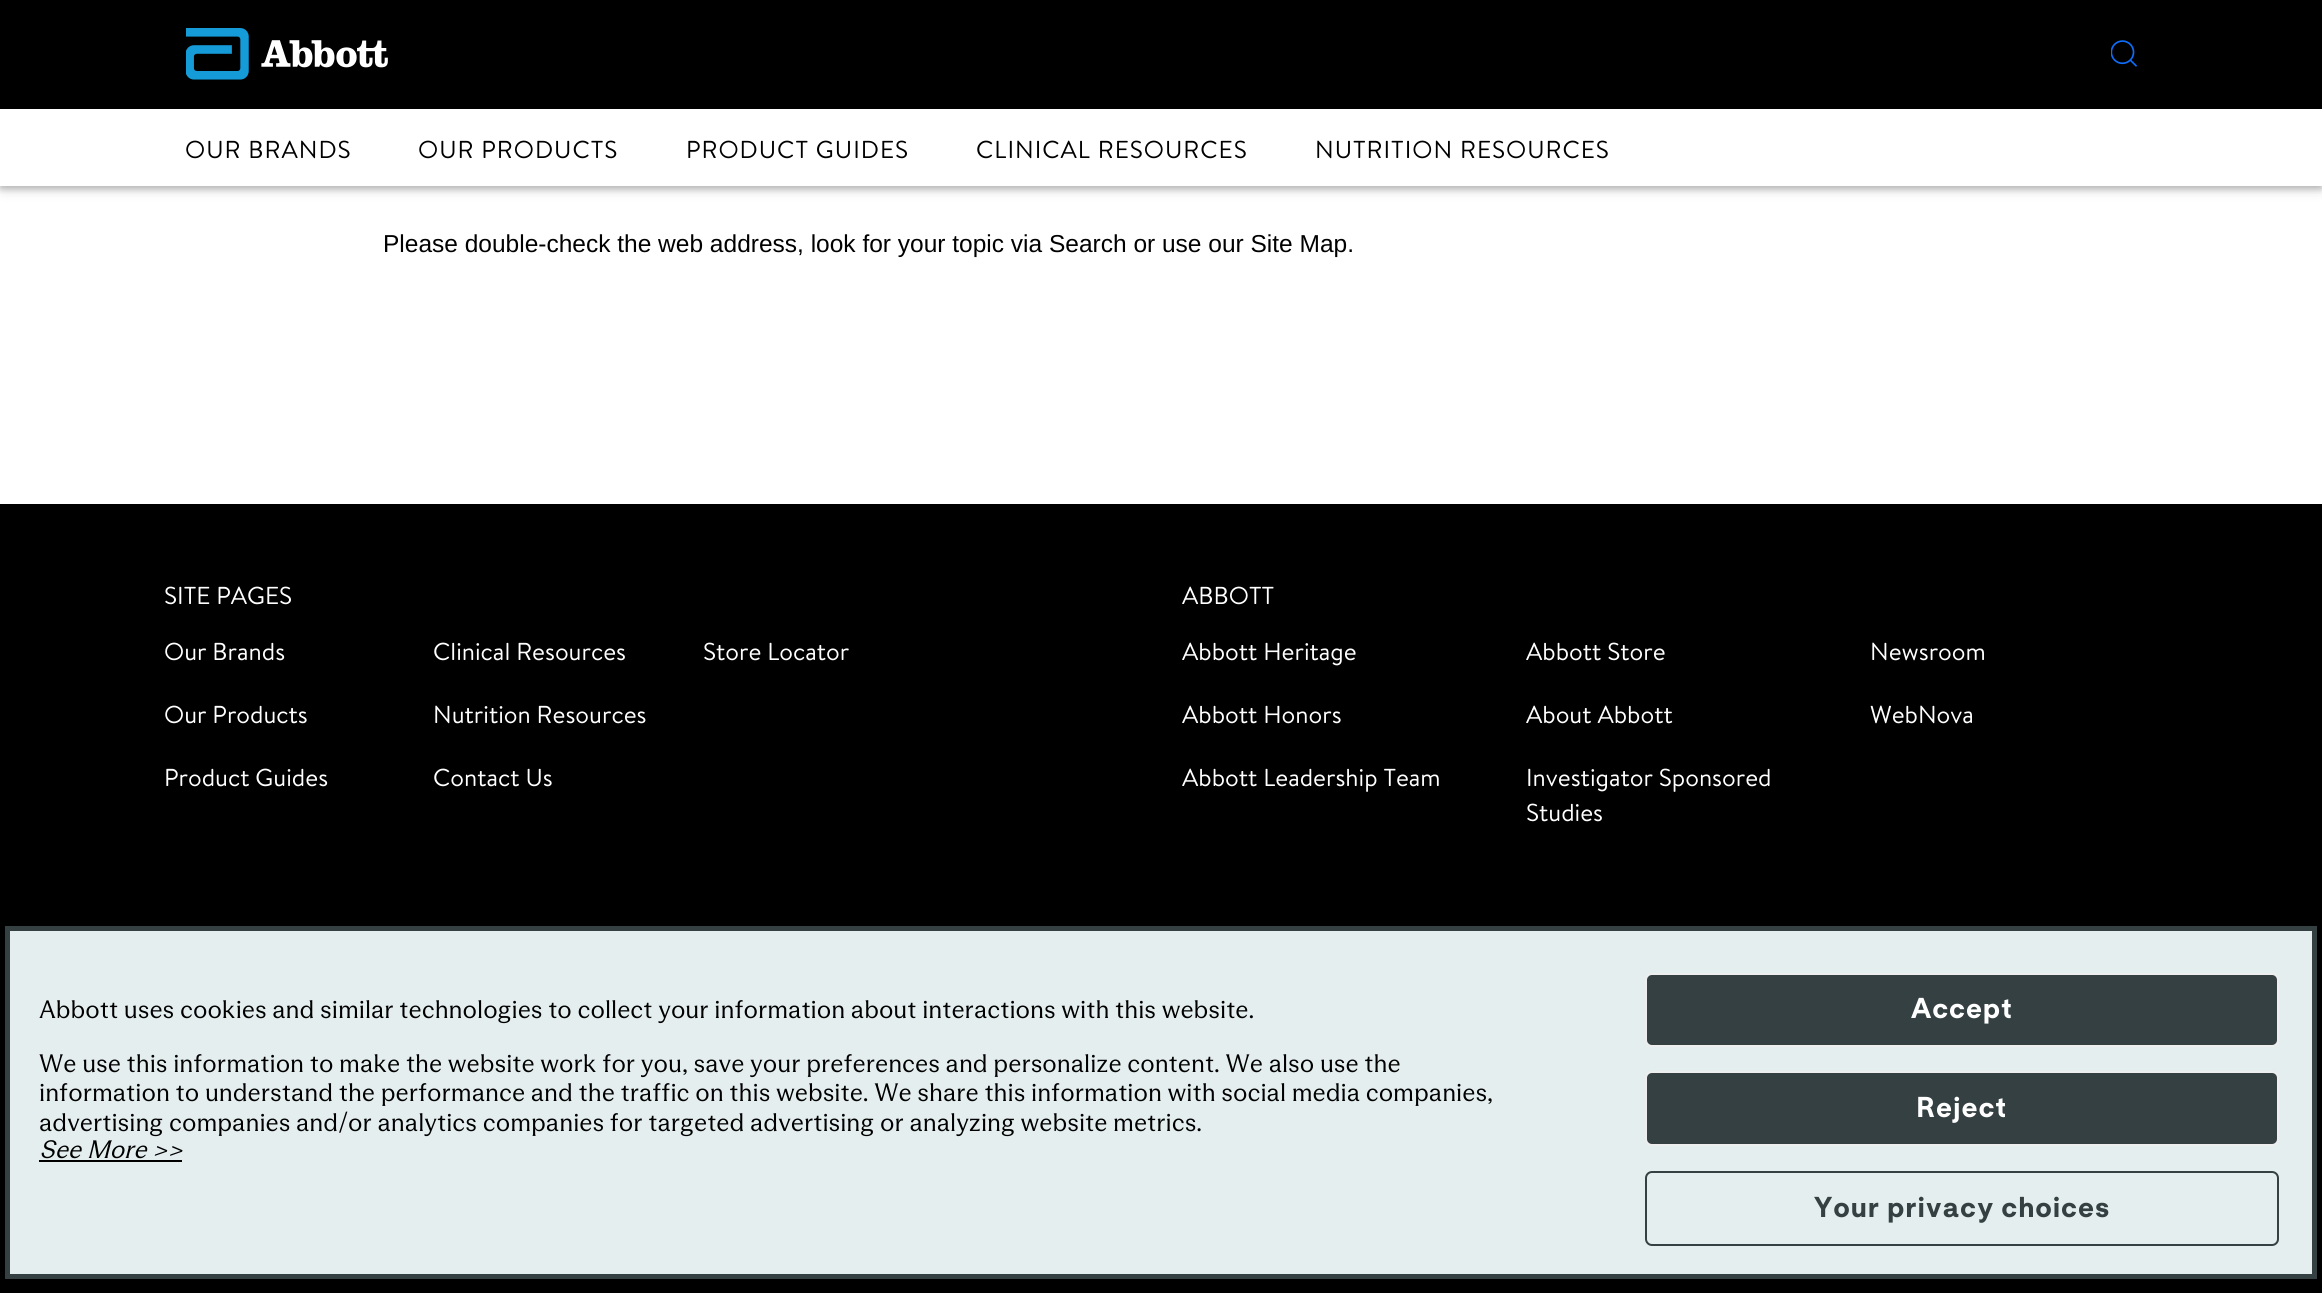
#include <cairo.h>
#include <math.h>
#include <stddef.h>

static cairo_t *ctx;

static void use_color(int r, int g, int b) {
    cairo_set_source_rgb(ctx, r / 255.0, g / 255.0, b / 255.0);
}

static void spaced_text(double x, double y, const char *s, double letter, double word) {
    cairo_move_to(ctx, x, y);
    while (*s) {
        char ch[5] = {0};
        int n = 0;
        do ch[n++] = *s++; while ((*s & 0xC0) == 0x80);
        cairo_show_text(ctx, ch);
        cairo_rel_move_to(ctx, letter + word * (*ch == ' '), 0);
    }
}

static void round_rect(double x, double y, double w, double h, double r) {
    cairo_new_sub_path(ctx);
    cairo_arc(ctx, x + w - r, y + h - r, r, 0, M_PI / 2);
    cairo_arc(ctx, x + r, y + h - r, r, M_PI / 2, M_PI);
    cairo_arc(ctx, x + r, y + r, r, M_PI, 1.5 * M_PI);
    cairo_arc(ctx, x + w - r, y + r, r, 1.5 * M_PI, 2 * M_PI);
    cairo_close_path(ctx);
}

static void shadow(double x, double y, double w, double h, double r, double blur, double alpha) {
    cairo_push_group_with_content(ctx, CAIRO_CONTENT_ALPHA);
    cairo_set_operator(ctx, CAIRO_OPERATOR_SOURCE);
    for (int i = 15; i >= -15 && fmin(w, h) + blur * i / 3 > 0; i -= 2) {
        double e = blur * i / 6;
        cairo_set_source_rgba(ctx, 0, 0, 0, alpha * erfc((i - 1) / 8.5) / 2);
        round_rect(x - e, y - e, w + 2 * e, h + 2 * e, fmax(0, fmin(r + e + blur * .6, fmin(w, h) / 2 + e)));
        cairo_fill(ctx);
    }
    cairo_pattern_t *soft = cairo_pop_group(ctx);
    cairo_mask(ctx, soft);
    cairo_pattern_destroy(soft);
}

static void picture(const char *path, double x, double y, double w, double h) {
    cairo_surface_t *image = cairo_image_surface_create_from_png(path);
    cairo_save(ctx);
    cairo_set_source_surface(ctx, image, x, y);
    cairo_rectangle(ctx, x, y, w, h);
    cairo_fill(ctx);
    cairo_restore(ctx);
    cairo_surface_destroy(image);
}

int main(void) {
    cairo_surface_t *surface = cairo_image_surface_create(CAIRO_FORMAT_RGB24, 2322, 1293);
    ctx = cairo_create(surface);
    cairo_font_options_t *options = cairo_font_options_create();
    cairo_font_options_set_hint_metrics(options, CAIRO_HINT_METRICS_OFF);
    cairo_font_options_set_hint_style(options, CAIRO_HINT_STYLE_NONE);
    cairo_set_font_options(ctx, options);
    cairo_set_miter_limit(ctx, 4);
    use_color(255, 255, 255);
    cairo_paint(ctx);
    use_color(141, 141, 148);
    shadow(4, 11, 2315, 178, 0, 7, 0.28);
    use_color(0, 0, 0);
    shadow(0, 4, 2322, 185, 0, 3.5, 0.24);
    use_color(255, 255, 255);
    cairo_rectangle(ctx, 0, 109, 2322, 77);
    cairo_fill(ctx);
    use_color(0, 0, 0);
    cairo_rectangle(ctx, 0, 0, 2322, 109);
    cairo_fill(ctx);
    picture("img1.png", 186, 28, 202, 52);
    picture("img2.png", 2111, 40, 27, 27);
    cairo_select_font_face(ctx, "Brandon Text", CAIRO_FONT_SLANT_NORMAL, CAIRO_FONT_WEIGHT_NORMAL);
    cairo_set_font_size(ctx, 24.5);
    spaced_text(185, 158, "OUR BRANDS", 1, 0);
    spaced_text(418, 158, "OUR PRODUCTS", 1, 0);
    spaced_text(686, 158, "PRODUCT GUIDES", 1, 0);
    spaced_text(976, 158, "CLINICAL RESOURCES", 1, 0);
    spaced_text(1315, 158, "NUTRITION RESOURCES", 1, 0);
    cairo_select_font_face(ctx, "Liberation Sans", CAIRO_FONT_SLANT_NORMAL, CAIRO_FONT_WEIGHT_NORMAL);
    cairo_move_to(ctx, 383, 252);
    cairo_show_text(ctx, "Please double-check the web address, look for your topic via Search or use our Site Map.");
    cairo_rectangle(ctx, 0, 504, 2322, 789);
    cairo_fill(ctx);
    cairo_select_font_face(ctx, "Brandon Text", CAIRO_FONT_SLANT_NORMAL, CAIRO_FONT_WEIGHT_NORMAL);
    use_color(255, 255, 255);
    cairo_move_to(ctx, 164, 604);
    cairo_show_text(ctx, "SITE PAGES");
    cairo_move_to(ctx, 164, 660);
    cairo_show_text(ctx, "Our Brands");
    cairo_move_to(ctx, 433, 660);
    cairo_show_text(ctx, "Clinical Resources");
    cairo_move_to(ctx, 703, 660);
    cairo_show_text(ctx, "Store Locator");
    cairo_move_to(ctx, 164, 723);
    cairo_show_text(ctx, "Our Products");
    cairo_move_to(ctx, 433, 723);
    cairo_show_text(ctx, "Nutrition Resources");
    cairo_move_to(ctx, 164, 786);
    cairo_show_text(ctx, "Product Guides");
    cairo_move_to(ctx, 433, 786);
    cairo_show_text(ctx, "Contact Us");
    cairo_move_to(ctx, 1182, 604);
    cairo_show_text(ctx, "ABBOTT");
    cairo_move_to(ctx, 1182, 660);
    cairo_show_text(ctx, "Abbott Heritage");
    cairo_move_to(ctx, 1526, 660);
    cairo_show_text(ctx, "Abbott Store");
    cairo_move_to(ctx, 1870, 660);
    cairo_show_text(ctx, "Newsroom");
    cairo_move_to(ctx, 1182, 723);
    cairo_show_text(ctx, "Abbott Honors");
    cairo_move_to(ctx, 1526, 723);
    cairo_show_text(ctx, "About Abbott");
    cairo_move_to(ctx, 1870, 723);
    cairo_show_text(ctx, "WebNova");
    cairo_move_to(ctx, 1182, 786);
    cairo_show_text(ctx, "Abbott Leadership Team");
    cairo_move_to(ctx, 1526, 786);
    cairo_show_text(ctx, "Investigator Sponsored");
    cairo_move_to(ctx, 1526, 821);
    cairo_show_text(ctx, "Studies");
    use_color(228, 238, 239);
    cairo_rectangle(ctx, 7.5, 928.5, 2307, 348);
    cairo_fill_preserve(ctx);
    use_color(52, 64, 66);
    cairo_set_line_width(ctx, 5);
    cairo_stroke(ctx);
    cairo_select_font_face(ctx, "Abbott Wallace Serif", CAIRO_FONT_SLANT_NORMAL, CAIRO_FONT_WEIGHT_NORMAL);
    use_color(0, 0, 0);
    cairo_move_to(ctx, 39, 1018);
    cairo_show_text(ctx, "Abbott uses cookies and similar technologies to collect your information about interactions with this website.");
    cairo_move_to(ctx, 39, 1072);
    cairo_show_text(ctx, "We use this information to make the website work for you, save your preferences and personalize content. We also use the");
    cairo_move_to(ctx, 39, 1101);
    cairo_show_text(ctx, "information to understand the performance and the traffic on this website. We share this information with social media companies,");
    cairo_move_to(ctx, 39, 1131);
    cairo_show_text(ctx, "advertising companies and/or analytics companies for targeted advertising or analyzing website metrics.");
    cairo_select_font_face(ctx, "Abbott Wallace Serif", CAIRO_FONT_SLANT_ITALIC, CAIRO_FONT_WEIGHT_NORMAL);
    cairo_move_to(ctx, 39, 1158);
    cairo_show_text(ctx, "See More >>");
    cairo_rectangle(ctx, 39, 1160, 143, 2);
    cairo_fill(ctx);
    use_color(52, 64, 66);
    round_rect(1646, 974, 632, 72, 6);
    cairo_fill_preserve(ctx);
    use_color(238, 238, 238);
    cairo_set_line_width(ctx, 2);
    cairo_stroke(ctx);
    cairo_select_font_face(ctx, "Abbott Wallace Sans", CAIRO_FONT_SLANT_NORMAL, CAIRO_FONT_WEIGHT_BOLD);
    cairo_set_font_size(ctx, 28);
    use_color(255, 255, 255);
    spaced_text(1911, 1018, "Accept", 0.9, 0);
    use_color(52, 64, 66);
    round_rect(1646, 1072, 632, 73, 6);
    cairo_fill_preserve(ctx);
    use_color(238, 238, 238);
    cairo_stroke(ctx);
    use_color(255, 255, 255);
    spaced_text(1916, 1117, "Reject", 0.9, 0);
    round_rect(1646, 1172, 632, 73, 6);
    use_color(52, 64, 66);
    cairo_stroke(ctx);
    spaced_text(1814, 1217, "Your privacy choices", 0.9, 0);
    cairo_surface_write_to_png(surface, "result.png");
    cairo_font_options_destroy(options);
    cairo_destroy(ctx);
    cairo_surface_destroy(surface);
    return 0;
}
